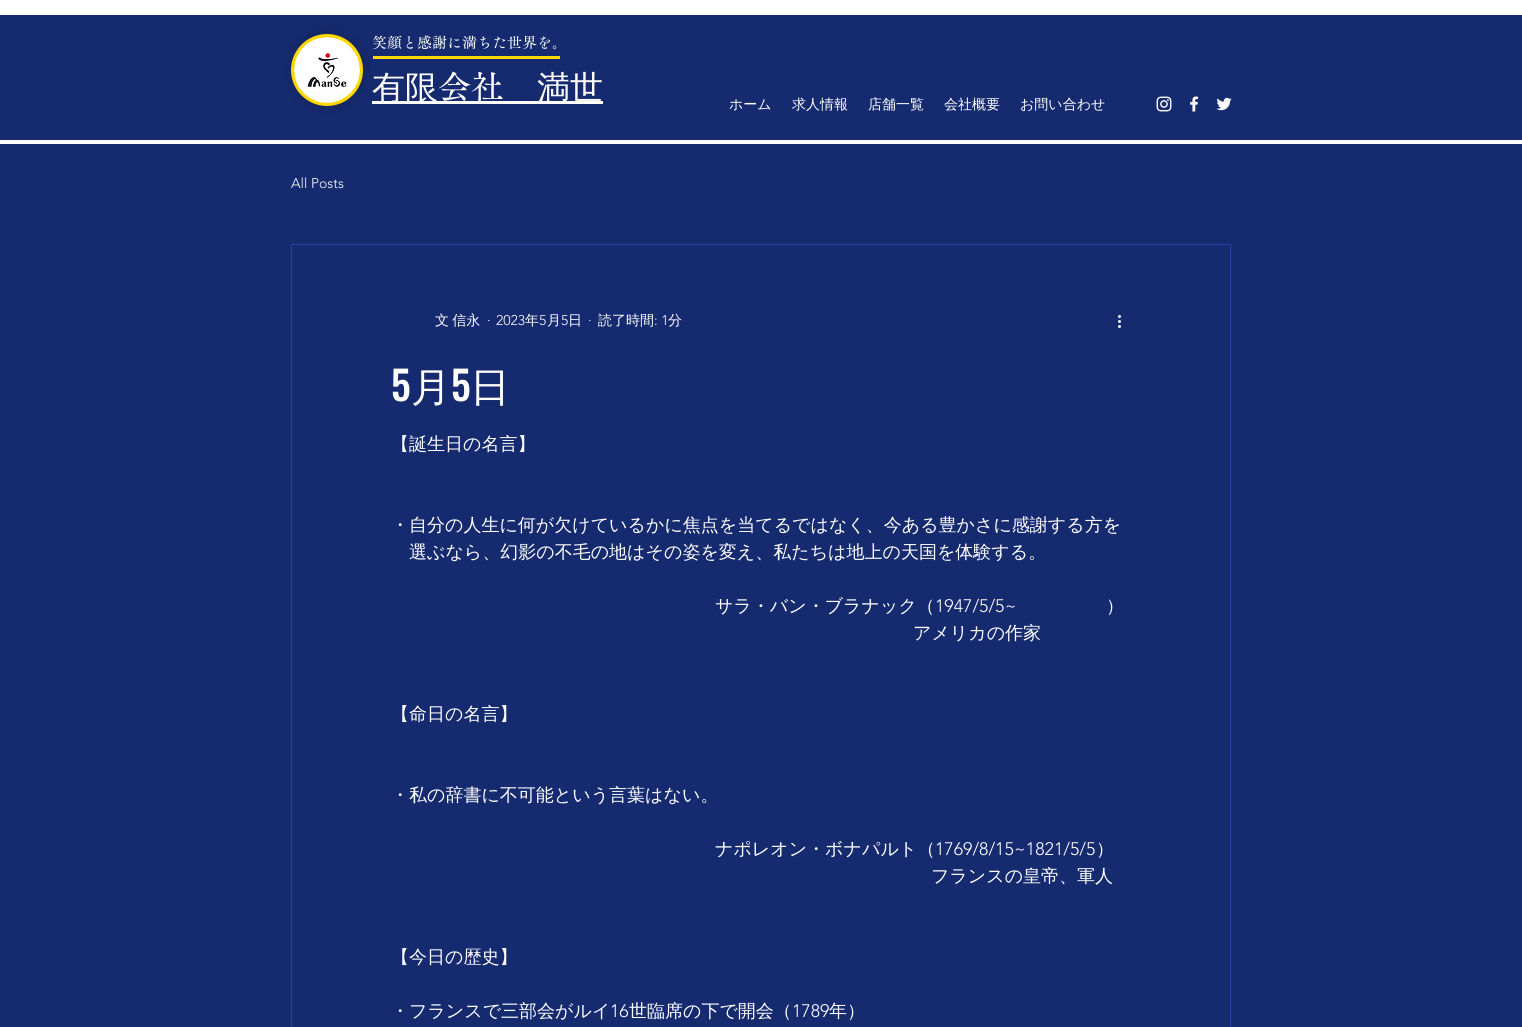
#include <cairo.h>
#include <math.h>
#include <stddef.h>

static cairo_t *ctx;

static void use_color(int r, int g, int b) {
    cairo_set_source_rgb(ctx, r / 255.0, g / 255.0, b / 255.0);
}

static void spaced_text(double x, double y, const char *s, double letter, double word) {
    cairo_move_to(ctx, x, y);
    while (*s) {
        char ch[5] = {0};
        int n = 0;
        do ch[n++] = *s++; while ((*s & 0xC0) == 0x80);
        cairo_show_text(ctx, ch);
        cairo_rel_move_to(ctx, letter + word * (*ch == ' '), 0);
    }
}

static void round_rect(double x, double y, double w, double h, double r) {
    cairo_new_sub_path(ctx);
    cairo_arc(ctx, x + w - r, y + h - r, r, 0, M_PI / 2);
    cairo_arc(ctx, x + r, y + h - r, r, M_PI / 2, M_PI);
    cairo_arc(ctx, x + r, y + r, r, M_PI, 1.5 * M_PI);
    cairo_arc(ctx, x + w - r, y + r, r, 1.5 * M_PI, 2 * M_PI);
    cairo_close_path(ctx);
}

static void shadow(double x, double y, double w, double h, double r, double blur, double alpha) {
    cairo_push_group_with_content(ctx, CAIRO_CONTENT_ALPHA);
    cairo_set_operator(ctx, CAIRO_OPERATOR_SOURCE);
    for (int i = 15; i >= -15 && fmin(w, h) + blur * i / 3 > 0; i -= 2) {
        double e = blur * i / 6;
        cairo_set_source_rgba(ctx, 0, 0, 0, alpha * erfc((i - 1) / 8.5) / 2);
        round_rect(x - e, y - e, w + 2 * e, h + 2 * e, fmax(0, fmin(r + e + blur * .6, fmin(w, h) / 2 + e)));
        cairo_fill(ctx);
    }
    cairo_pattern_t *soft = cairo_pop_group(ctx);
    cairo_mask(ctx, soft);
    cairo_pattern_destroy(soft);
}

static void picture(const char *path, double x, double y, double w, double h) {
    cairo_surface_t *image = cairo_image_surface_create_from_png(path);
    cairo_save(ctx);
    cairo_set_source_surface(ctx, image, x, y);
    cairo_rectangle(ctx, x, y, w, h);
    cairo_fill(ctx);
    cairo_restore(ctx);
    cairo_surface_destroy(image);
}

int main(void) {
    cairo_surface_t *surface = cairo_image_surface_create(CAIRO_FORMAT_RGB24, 1522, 1027);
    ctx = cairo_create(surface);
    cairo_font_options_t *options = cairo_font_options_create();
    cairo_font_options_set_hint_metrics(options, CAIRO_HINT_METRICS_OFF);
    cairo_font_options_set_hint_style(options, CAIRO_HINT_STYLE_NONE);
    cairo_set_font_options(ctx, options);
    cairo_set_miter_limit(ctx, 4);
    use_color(255, 255, 255);
    cairo_paint(ctx);
    use_color(22, 43, 111);
    cairo_rectangle(ctx, 0, 15, 1522, 125);
    cairo_fill(ctx);
    use_color(0, 0, 0);
    shadow(291, 34, 72, 72, 36, 7, 0.2);
    use_color(255, 215, 2);
    cairo_arc(ctx, 327, 70, 34.5, 0, 2 * M_PI);
    cairo_fill_preserve(ctx);
    cairo_set_line_width(ctx, 3);
    cairo_stroke(ctx);
    picture("img1.png", 294, 37, 66, 66);
    cairo_select_font_face(ctx, "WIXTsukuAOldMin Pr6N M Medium", CAIRO_FONT_SLANT_NORMAL, CAIRO_FONT_WEIGHT_NORMAL);
    cairo_set_font_size(ctx, 15);
    use_color(255, 255, 255);
    cairo_move_to(ctx, 372, 48);
    cairo_show_text(ctx, "笑顔と感謝に満ちた世界を。");
    use_color(255, 215, 2);
    cairo_rectangle(ctx, 373, 56, 187, 3);
    cairo_fill(ctx);
    use_color(255, 255, 255);
    cairo_rectangle(ctx, 372, 101, 231, 3);
    cairo_fill(ctx);
    cairo_select_font_face(ctx, "WenQuanYi Zen Hei Medium", CAIRO_FONT_SLANT_NORMAL, CAIRO_FONT_WEIGHT_NORMAL);
    cairo_set_font_size(ctx, 33);
    cairo_move_to(ctx, 372, 99);
    cairo_show_text(ctx, "有限");
    cairo_select_font_face(ctx, "WIXTsukuAOldMin Pr6N M Medium", CAIRO_FONT_SLANT_NORMAL, CAIRO_FONT_WEIGHT_NORMAL);
    cairo_move_to(ctx, 438, 99);
    cairo_show_text(ctx, "会社");
    cairo_select_font_face(ctx, "WenQuanYi Zen Hei Medium", CAIRO_FONT_SLANT_NORMAL, CAIRO_FONT_WEIGHT_NORMAL);
    cairo_move_to(ctx, 537, 99);
    cairo_show_text(ctx, "満世");
    cairo_set_font_size(ctx, 14);
    cairo_move_to(ctx, 729, 109);
    cairo_show_text(ctx, "ホーム");
    cairo_move_to(ctx, 792, 109);
    cairo_show_text(ctx, "求人情報");
    cairo_move_to(ctx, 868, 109);
    cairo_show_text(ctx, "店舗一覧");
    cairo_move_to(ctx, 944, 109);
    cairo_show_text(ctx, "会社概要");
    cairo_move_to(ctx, 1020, 109);
    cairo_show_text(ctx, "お問い合わせ");
    picture("img2.png", 1156, 96, 16, 16);
    picture("img3.png", 1190, 96, 9, 16);
    picture("img4.png", 1216, 97, 16, 14);
    use_color(22, 43, 111);
    cairo_rectangle(ctx, 0, 144, 1522, 883);
    cairo_fill(ctx);
    cairo_select_font_face(ctx, "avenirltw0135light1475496 Light", CAIRO_FONT_SLANT_NORMAL, CAIRO_FONT_WEIGHT_NORMAL);
    use_color(255, 255, 255);
    cairo_move_to(ctx, 291, 188);
    cairo_show_text(ctx, "All Posts");
    cairo_rectangle(ctx, 291.5, 244.5, 939, 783);
    use_color(34, 66, 170);
    cairo_set_line_width(ctx, 1);
    cairo_stroke(ctx);
    cairo_select_font_face(ctx, "WenQuanYi Zen Hei Medium", CAIRO_FONT_SLANT_NORMAL, CAIRO_FONT_WEIGHT_NORMAL);
    use_color(255, 255, 255);
    spaced_text(435, 325, "文 信永", 0, -1);
    cairo_select_font_face(ctx, "avenirltw0135light1475496 Light", CAIRO_FONT_SLANT_NORMAL, CAIRO_FONT_WEIGHT_NORMAL);
    cairo_move_to(ctx, 487, 325);
    cairo_show_text(ctx, "·");
    cairo_move_to(ctx, 496, 325);
    cairo_show_text(ctx, "2023");
    cairo_select_font_face(ctx, "WenQuanYi Zen Hei Medium", CAIRO_FONT_SLANT_NORMAL, CAIRO_FONT_WEIGHT_NORMAL);
    cairo_move_to(ctx, 525, 325);
    cairo_show_text(ctx, "年");
    cairo_select_font_face(ctx, "avenirltw0135light1475496 Light", CAIRO_FONT_SLANT_NORMAL, CAIRO_FONT_WEIGHT_NORMAL);
    cairo_move_to(ctx, 539, 325);
    cairo_show_text(ctx, "5");
    cairo_select_font_face(ctx, "WenQuanYi Zen Hei Medium", CAIRO_FONT_SLANT_NORMAL, CAIRO_FONT_WEIGHT_NORMAL);
    cairo_move_to(ctx, 547, 325);
    cairo_show_text(ctx, "月");
    cairo_select_font_face(ctx, "avenirltw0135light1475496 Light", CAIRO_FONT_SLANT_NORMAL, CAIRO_FONT_WEIGHT_NORMAL);
    cairo_move_to(ctx, 561, 325);
    cairo_show_text(ctx, "5");
    cairo_select_font_face(ctx, "WenQuanYi Zen Hei Medium", CAIRO_FONT_SLANT_NORMAL, CAIRO_FONT_WEIGHT_NORMAL);
    cairo_move_to(ctx, 568, 325);
    cairo_show_text(ctx, "日");
    cairo_select_font_face(ctx, "avenirltw0135light1475496 Light", CAIRO_FONT_SLANT_NORMAL, CAIRO_FONT_WEIGHT_NORMAL);
    cairo_move_to(ctx, 588, 325);
    cairo_show_text(ctx, "·");
    cairo_select_font_face(ctx, "WenQuanYi Zen Hei Medium", CAIRO_FONT_SLANT_NORMAL, CAIRO_FONT_WEIGHT_NORMAL);
    cairo_move_to(ctx, 598, 325);
    cairo_show_text(ctx, "読了時間");
    cairo_select_font_face(ctx, "avenirltw0135light1475496 Light", CAIRO_FONT_SLANT_NORMAL, CAIRO_FONT_WEIGHT_NORMAL);
    cairo_move_to(ctx, 654, 325);
    cairo_show_text(ctx, ": 1");
    cairo_select_font_face(ctx, "WenQuanYi Zen Hei Medium", CAIRO_FONT_SLANT_NORMAL, CAIRO_FONT_WEIGHT_NORMAL);
    cairo_move_to(ctx, 668, 325);
    cairo_show_text(ctx, "分");
    picture("img5.png", 1118, 315, 3, 13);
    cairo_select_font_face(ctx, "Oswald Medium", CAIRO_FONT_SLANT_NORMAL, CAIRO_FONT_WEIGHT_NORMAL);
    cairo_set_font_size(ctx, 40);
    cairo_move_to(ctx, 391, 401);
    cairo_show_text(ctx, "5");
    cairo_select_font_face(ctx, "WenQuanYi Zen Hei Medium", CAIRO_FONT_SLANT_NORMAL, CAIRO_FONT_WEIGHT_NORMAL);
    cairo_move_to(ctx, 411, 401);
    cairo_show_text(ctx, "月");
    cairo_select_font_face(ctx, "Oswald Medium", CAIRO_FONT_SLANT_NORMAL, CAIRO_FONT_WEIGHT_NORMAL);
    cairo_move_to(ctx, 451, 401);
    cairo_show_text(ctx, "5");
    cairo_select_font_face(ctx, "WenQuanYi Zen Hei Medium", CAIRO_FONT_SLANT_NORMAL, CAIRO_FONT_WEIGHT_NORMAL);
    cairo_move_to(ctx, 470, 401);
    cairo_show_text(ctx, "日");
    cairo_set_font_size(ctx, 18);
    cairo_move_to(ctx, 391, 450);
    cairo_show_text(ctx, "【誕生日の名言】");
    cairo_move_to(ctx, 391, 531);
    cairo_show_text(ctx, "・自分の人生に何が欠けているかに焦点を当てるではなく、今ある豊かさに感謝する方を");
    cairo_move_to(ctx, 409, 558);
    cairo_show_text(ctx, "選ぶなら、幻影の不毛の地はその姿を変え、私たちは地上の天国を体験する。");
    cairo_move_to(ctx, 715, 612);
    cairo_show_text(ctx, "サラ・バン・ブラナック（");
    cairo_select_font_face(ctx, "avenirltw0135light1475496 Light", CAIRO_FONT_SLANT_NORMAL, CAIRO_FONT_WEIGHT_NORMAL);
    cairo_move_to(ctx, 935, 612);
    cairo_show_text(ctx, "1947/5/5~");
    cairo_select_font_face(ctx, "WenQuanYi Zen Hei Medium", CAIRO_FONT_SLANT_NORMAL, CAIRO_FONT_WEIGHT_NORMAL);
    cairo_move_to(ctx, 1106, 612);
    cairo_show_text(ctx, "）");
    cairo_move_to(ctx, 913, 639);
    cairo_show_text(ctx, "アメリカの作家");
    cairo_move_to(ctx, 391, 720);
    cairo_show_text(ctx, "【命日の名言】");
    cairo_move_to(ctx, 391, 801);
    cairo_show_text(ctx, "・私の辞書に不可能という言葉はない。");
    cairo_move_to(ctx, 715, 855);
    cairo_show_text(ctx, "ナポレオン・ボナパルト（");
    cairo_select_font_face(ctx, "avenirltw0135light1475496 Light", CAIRO_FONT_SLANT_NORMAL, CAIRO_FONT_WEIGHT_NORMAL);
    cairo_move_to(ctx, 935, 855);
    cairo_show_text(ctx, "1769/8/15~1821/5/5");
    cairo_select_font_face(ctx, "WenQuanYi Zen Hei Medium", CAIRO_FONT_SLANT_NORMAL, CAIRO_FONT_WEIGHT_NORMAL);
    cairo_move_to(ctx, 1096, 855);
    cairo_show_text(ctx, "）");
    cairo_move_to(ctx, 931, 882);
    cairo_show_text(ctx, "フランスの皇帝、軍人");
    cairo_move_to(ctx, 391, 963);
    cairo_show_text(ctx, "【今日の歴史】");
    cairo_move_to(ctx, 391, 1017);
    cairo_show_text(ctx, "・フランスで三部会がルイ");
    cairo_select_font_face(ctx, "avenirltw0135light1475496 Light", CAIRO_FONT_SLANT_NORMAL, CAIRO_FONT_WEIGHT_NORMAL);
    cairo_move_to(ctx, 610, 1017);
    cairo_show_text(ctx, "16");
    cairo_select_font_face(ctx, "WenQuanYi Zen Hei Medium", CAIRO_FONT_SLANT_NORMAL, CAIRO_FONT_WEIGHT_NORMAL);
    cairo_move_to(ctx, 629, 1017);
    cairo_show_text(ctx, "世臨席の下で開会（");
    cairo_select_font_face(ctx, "avenirltw0135light1475496 Light", CAIRO_FONT_SLANT_NORMAL, CAIRO_FONT_WEIGHT_NORMAL);
    cairo_move_to(ctx, 792, 1017);
    cairo_show_text(ctx, "1789");
    cairo_select_font_face(ctx, "WenQuanYi Zen Hei Medium", CAIRO_FONT_SLANT_NORMAL, CAIRO_FONT_WEIGHT_NORMAL);
    cairo_move_to(ctx, 829, 1017);
    cairo_show_text(ctx, "年）");
    cairo_surface_write_to_png(surface, "result.png");
    cairo_font_options_destroy(options);
    cairo_destroy(ctx);
    cairo_surface_destroy(surface);
    return 0;
}
